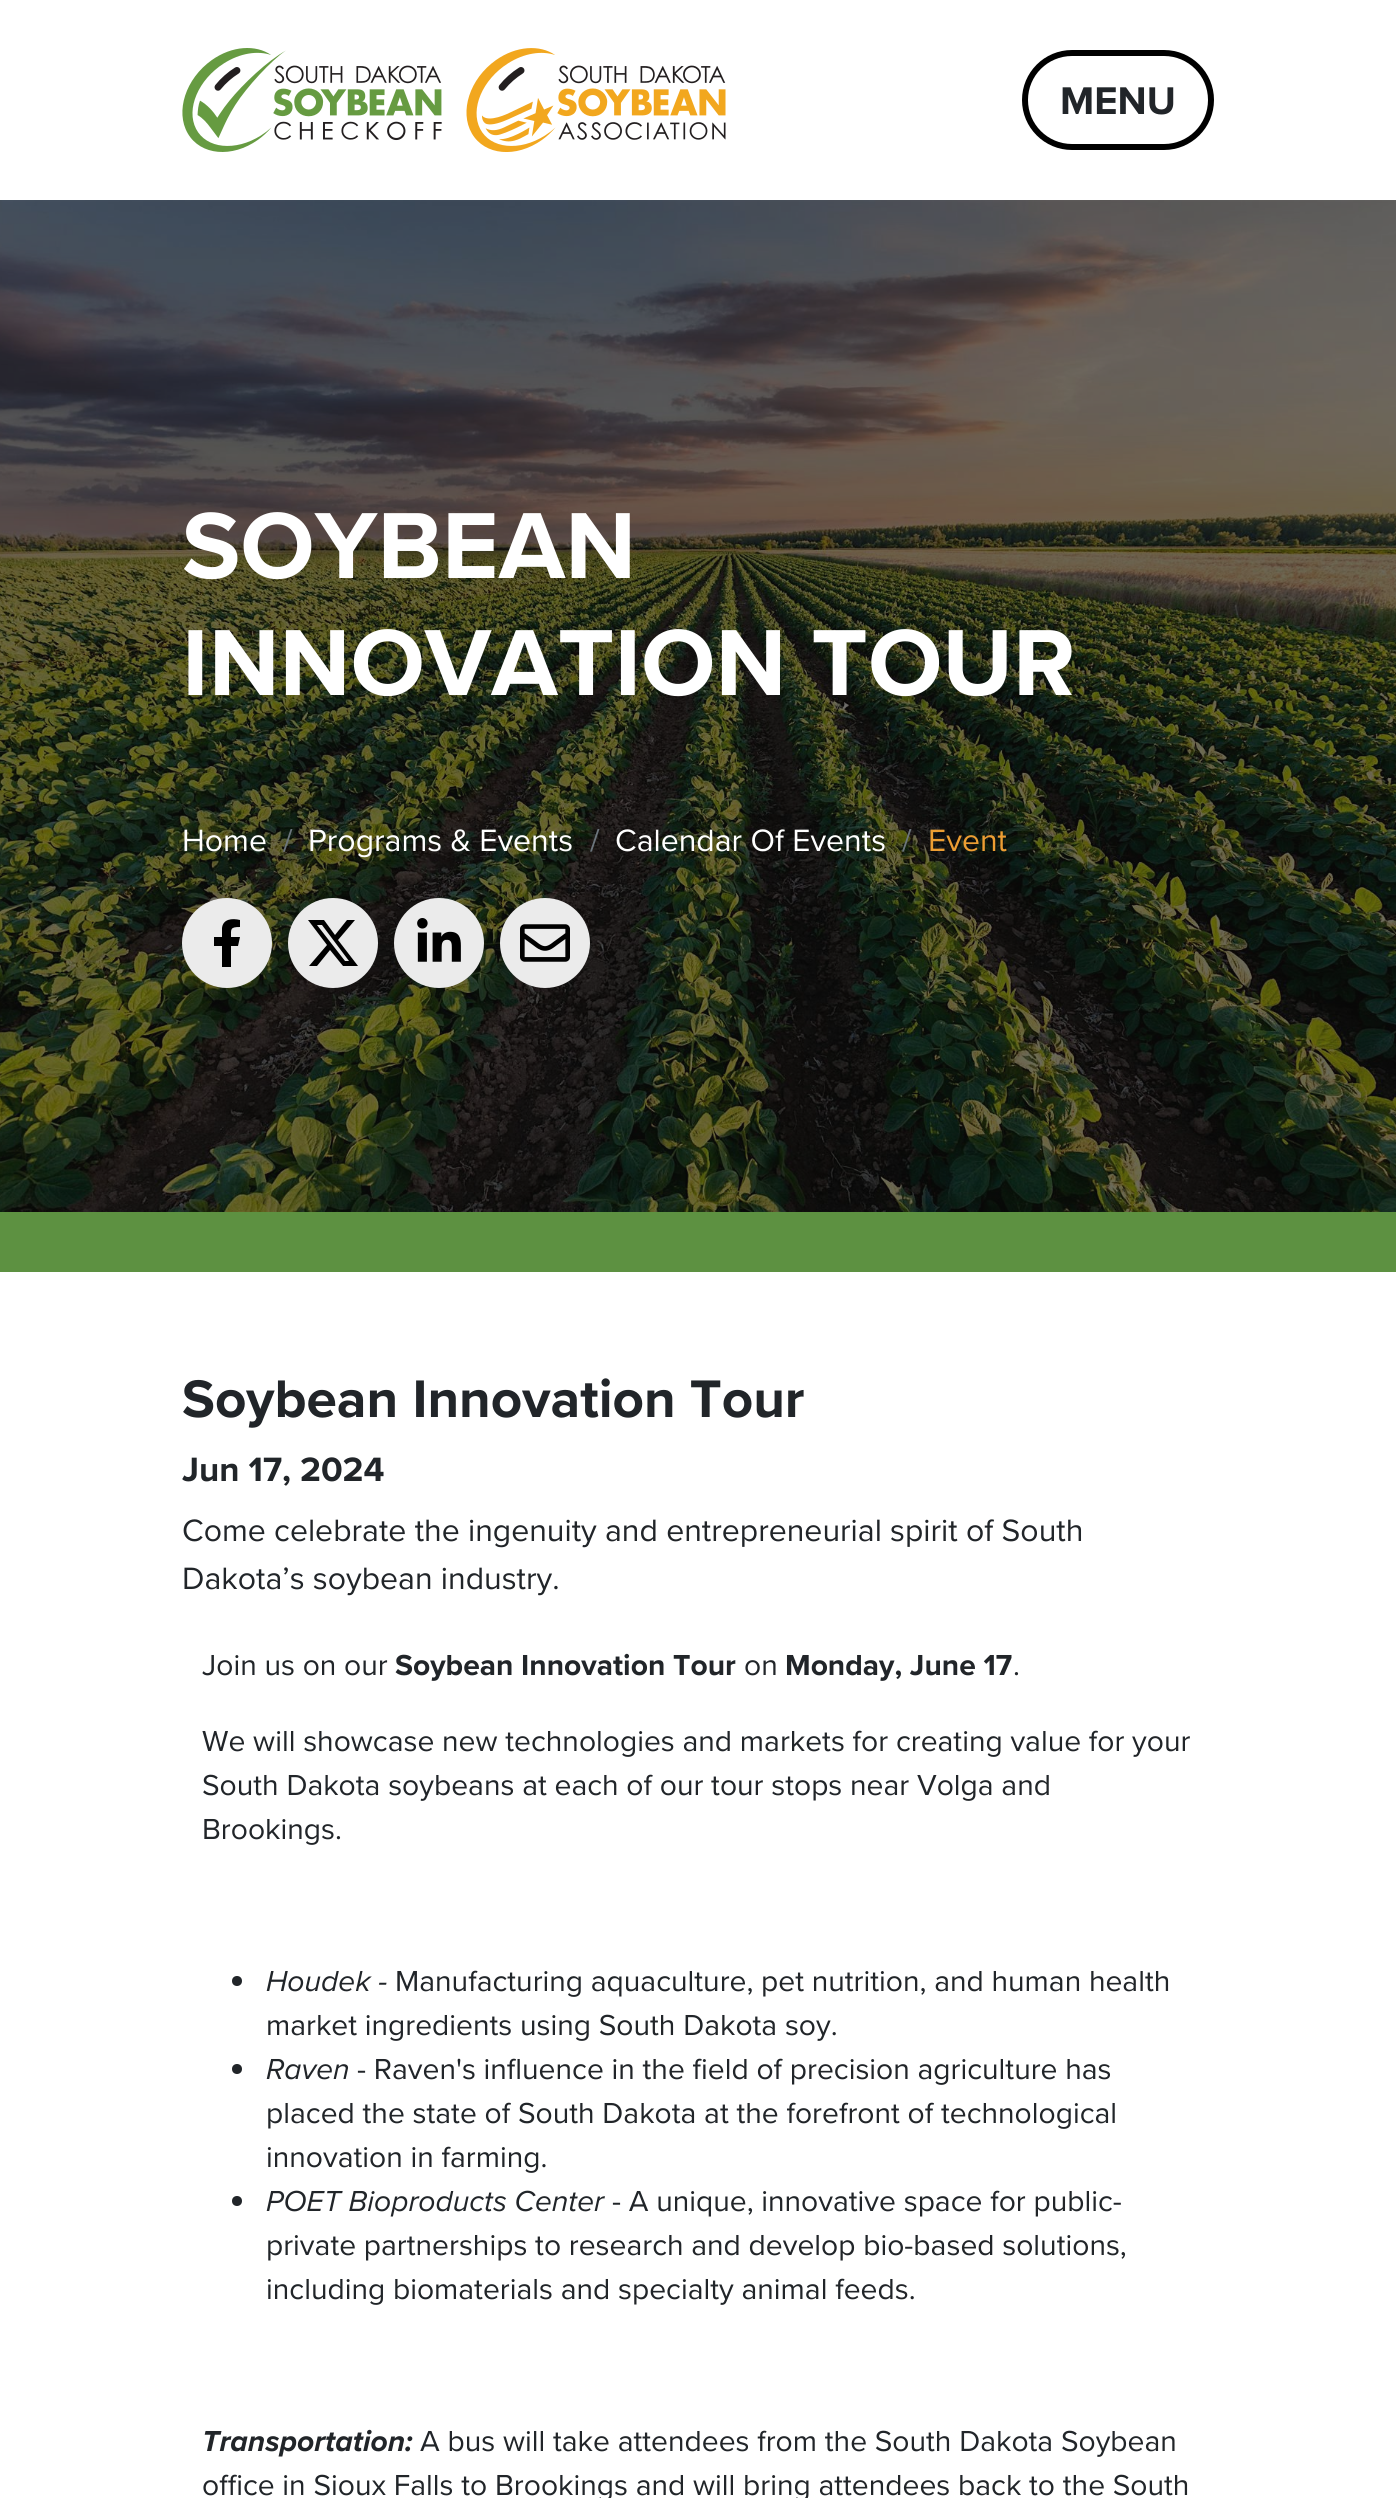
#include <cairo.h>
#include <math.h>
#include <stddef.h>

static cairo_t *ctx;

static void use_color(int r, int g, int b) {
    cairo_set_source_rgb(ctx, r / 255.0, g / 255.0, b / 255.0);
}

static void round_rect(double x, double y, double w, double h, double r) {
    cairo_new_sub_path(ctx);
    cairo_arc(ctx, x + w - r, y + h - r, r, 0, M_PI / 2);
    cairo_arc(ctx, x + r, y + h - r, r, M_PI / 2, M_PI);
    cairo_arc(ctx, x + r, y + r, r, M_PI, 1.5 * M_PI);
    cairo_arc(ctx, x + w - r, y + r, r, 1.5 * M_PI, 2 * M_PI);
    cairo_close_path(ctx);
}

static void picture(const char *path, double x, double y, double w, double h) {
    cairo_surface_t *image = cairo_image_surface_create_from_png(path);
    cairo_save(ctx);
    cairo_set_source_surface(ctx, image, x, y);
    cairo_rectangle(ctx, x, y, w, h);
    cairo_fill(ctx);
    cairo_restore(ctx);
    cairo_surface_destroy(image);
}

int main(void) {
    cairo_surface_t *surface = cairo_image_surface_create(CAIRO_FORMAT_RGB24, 1396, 2498);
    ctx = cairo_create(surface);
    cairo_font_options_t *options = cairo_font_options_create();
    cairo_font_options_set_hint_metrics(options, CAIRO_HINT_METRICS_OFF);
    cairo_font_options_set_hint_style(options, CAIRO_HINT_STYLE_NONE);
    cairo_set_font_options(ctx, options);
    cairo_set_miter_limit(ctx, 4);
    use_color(255, 255, 255);
    cairo_paint(ctx);
    picture("img1.png", 182, 48, 260, 104);
    picture("img2.png", 466, 48, 260, 104);
    round_rect(1025, 53, 186, 94, 47);
    use_color(0, 0, 0);
    cairo_set_line_width(ctx, 6);
    cairo_stroke(ctx);
    cairo_select_font_face(ctx, "Proxima Nova", CAIRO_FONT_SLANT_NORMAL, CAIRO_FONT_WEIGHT_BOLD);
    cairo_set_font_size(ctx, 40);
    use_color(33, 37, 41);
    cairo_move_to(ctx, 1060, 114);
    cairo_show_text(ctx, "MENU");
    use_color(93, 145, 65);
    cairo_rectangle(ctx, 0, 1212, 1396, 60);
    cairo_fill(ctx);
    picture("img3.png", 0, 200, 1396, 1012);
    cairo_set_font_size(ctx, 97.25);
    use_color(255, 255, 255);
    cairo_move_to(ctx, 182, 578);
    cairo_show_text(ctx, "SOYBEAN");
    cairo_move_to(ctx, 182, 695);
    cairo_show_text(ctx, "INNOVATION TOUR");
    cairo_select_font_face(ctx, "Proxima Nova", CAIRO_FONT_SLANT_NORMAL, CAIRO_FONT_WEIGHT_NORMAL);
    cairo_set_font_size(ctx, 32);
    cairo_move_to(ctx, 182, 851);
    cairo_show_text(ctx, "Home");
    use_color(108, 117, 125);
    cairo_move_to(ctx, 283, 851);
    cairo_show_text(ctx, "/");
    use_color(255, 255, 255);
    cairo_move_to(ctx, 308, 851);
    cairo_show_text(ctx, "Programs & Events");
    use_color(108, 117, 125);
    cairo_move_to(ctx, 590, 851);
    cairo_show_text(ctx, "/");
    use_color(255, 255, 255);
    cairo_move_to(ctx, 615, 851);
    cairo_show_text(ctx, "Calendar Of Events");
    use_color(108, 117, 125);
    cairo_move_to(ctx, 902, 851);
    cairo_show_text(ctx, "/");
    use_color(237, 158, 51);
    cairo_move_to(ctx, 928, 851);
    cairo_show_text(ctx, "Event");
    use_color(235, 235, 235);
    cairo_new_path(ctx);
    cairo_arc(ctx, 227, 943, 45, 0, 2 * M_PI);
    cairo_fill(ctx);
    use_color(0, 0, 0);
    cairo_new_path(ctx);
    cairo_move_to(ctx, 238, 946);
    cairo_line_to(ctx, 240, 937);
    cairo_line_to(ctx, 231, 937);
    cairo_curve_to(ctx, 231, 929, 230, 927, 240, 927);
    cairo_line_to(ctx, 240, 920);
    cairo_curve_to(ctx, 232, 918, 223, 919, 222, 928);
    cairo_line_to(ctx, 222, 937);
    cairo_line_to(ctx, 214, 937);
    cairo_line_to(ctx, 214, 946);
    cairo_line_to(ctx, 222, 946);
    cairo_line_to(ctx, 222, 967);
    cairo_line_to(ctx, 231, 967);
    cairo_line_to(ctx, 231, 946);
    cairo_close_path(ctx);
    cairo_fill(ctx);
    use_color(235, 235, 235);
    cairo_arc(ctx, 333, 943, 45, 0, 2 * M_PI);
    cairo_fill(ctx);
    use_color(0, 0, 0);
    cairo_new_path(ctx);
    cairo_move_to(ctx, 347, 920);
    cairo_line_to(ctx, 355, 920);
    cairo_line_to(ctx, 338, 940);
    cairo_line_to(ctx, 358, 966);
    cairo_line_to(ctx, 343, 966);
    cairo_line_to(ctx, 330, 950);
    cairo_line_to(ctx, 317, 966);
    cairo_line_to(ctx, 309, 966);
    cairo_line_to(ctx, 327, 945);
    cairo_line_to(ctx, 308, 920);
    cairo_line_to(ctx, 324, 920);
    cairo_line_to(ctx, 335, 935);
    cairo_close_path(ctx);
    cairo_move_to(ctx, 345, 961);
    cairo_line_to(ctx, 349, 961);
    cairo_line_to(ctx, 322, 925);
    cairo_line_to(ctx, 317, 925);
    cairo_close_path(ctx);
    cairo_fill(ctx);
    use_color(235, 235, 235);
    cairo_arc(ctx, 439, 943, 45, 0, 2 * M_PI);
    cairo_fill(ctx);
    picture("img4.png", 417, 918, 44, 44);
    cairo_arc(ctx, 545, 943, 45, 0, 2 * M_PI);
    cairo_fill(ctx);
    picture("img5.png", 520, 924, 50, 38);
    cairo_select_font_face(ctx, "Proxima Nova", CAIRO_FONT_SLANT_NORMAL, CAIRO_FONT_WEIGHT_BOLD);
    cairo_set_font_size(ctx, 54.8);
    use_color(33, 37, 41);
    cairo_move_to(ctx, 182, 1417);
    cairo_show_text(ctx, "Soybean Innovation Tour");
    cairo_set_font_size(ctx, 35);
    cairo_move_to(ctx, 182, 1481);
    cairo_show_text(ctx, "Jun 17, 2024");
    cairo_select_font_face(ctx, "Proxima Nova", CAIRO_FONT_SLANT_NORMAL, CAIRO_FONT_WEIGHT_NORMAL);
    cairo_set_font_size(ctx, 32);
    cairo_move_to(ctx, 182, 1541);
    cairo_show_text(ctx, "Come celebrate the ingenuity and entrepreneurial spirit of South");
    cairo_move_to(ctx, 182, 1589);
    cairo_show_text(ctx, "Dakota’s soybean industry.");
    cairo_set_font_size(ctx, 30);
    cairo_move_to(ctx, 202, 1675);
    cairo_show_text(ctx, "Join us on our");
    cairo_select_font_face(ctx, "Proxima Nova", CAIRO_FONT_SLANT_NORMAL, CAIRO_FONT_WEIGHT_BOLD);
    cairo_move_to(ctx, 395, 1675);
    cairo_show_text(ctx, "Soybean Innovation Tour");
    cairo_select_font_face(ctx, "Proxima Nova", CAIRO_FONT_SLANT_NORMAL, CAIRO_FONT_WEIGHT_NORMAL);
    cairo_move_to(ctx, 744, 1675);
    cairo_show_text(ctx, "on");
    cairo_select_font_face(ctx, "Proxima Nova", CAIRO_FONT_SLANT_NORMAL, CAIRO_FONT_WEIGHT_BOLD);
    cairo_move_to(ctx, 785, 1675);
    cairo_show_text(ctx, "Monday, June 17");
    cairo_select_font_face(ctx, "Proxima Nova", CAIRO_FONT_SLANT_NORMAL, CAIRO_FONT_WEIGHT_NORMAL);
    cairo_move_to(ctx, 1013, 1675);
    cairo_show_text(ctx, ".");
    cairo_move_to(ctx, 202, 1751);
    cairo_show_text(ctx, "We will showcase new technologies and markets for creating value for your");
    cairo_move_to(ctx, 202, 1795);
    cairo_show_text(ctx, "South Dakota soybeans at each of our tour stops near Volga and");
    cairo_move_to(ctx, 202, 1839);
    cairo_show_text(ctx, "Brookings.");
    cairo_new_path(ctx);
    cairo_arc(ctx, 237, 1981, 5, 0, 2 * M_PI);
    cairo_fill(ctx);
    cairo_select_font_face(ctx, "Proxima Nova", CAIRO_FONT_SLANT_ITALIC, CAIRO_FONT_WEIGHT_NORMAL);
    cairo_move_to(ctx, 266, 1991);
    cairo_show_text(ctx, "Houdek -");
    cairo_select_font_face(ctx, "Proxima Nova", CAIRO_FONT_SLANT_NORMAL, CAIRO_FONT_WEIGHT_NORMAL);
    cairo_move_to(ctx, 395, 1991);
    cairo_show_text(ctx, "Manufacturing aquaculture, pet nutrition, and human health");
    cairo_move_to(ctx, 266, 2035);
    cairo_show_text(ctx, "market ingredients using South Dakota soy.");
    cairo_new_path(ctx);
    cairo_arc(ctx, 237, 2069, 5, 0, 2 * M_PI);
    cairo_fill(ctx);
    cairo_select_font_face(ctx, "Proxima Nova", CAIRO_FONT_SLANT_ITALIC, CAIRO_FONT_WEIGHT_NORMAL);
    cairo_move_to(ctx, 266, 2079);
    cairo_show_text(ctx, "Raven");
    cairo_select_font_face(ctx, "Proxima Nova", CAIRO_FONT_SLANT_NORMAL, CAIRO_FONT_WEIGHT_NORMAL);
    cairo_move_to(ctx, 357, 2079);
    cairo_show_text(ctx, "- Raven's influence in the field of precision agriculture has");
    cairo_move_to(ctx, 266, 2123);
    cairo_show_text(ctx, "placed the state of South Dakota at the forefront of technological");
    cairo_move_to(ctx, 266, 2167);
    cairo_show_text(ctx, "innovation in farming.");
    cairo_new_path(ctx);
    cairo_arc(ctx, 237, 2201, 5, 0, 2 * M_PI);
    cairo_fill(ctx);
    cairo_select_font_face(ctx, "Proxima Nova", CAIRO_FONT_SLANT_ITALIC, CAIRO_FONT_WEIGHT_NORMAL);
    cairo_move_to(ctx, 266, 2211);
    cairo_show_text(ctx, "POET Bioproducts Center");
    cairo_select_font_face(ctx, "Proxima Nova", CAIRO_FONT_SLANT_NORMAL, CAIRO_FONT_WEIGHT_NORMAL);
    cairo_move_to(ctx, 612, 2211);
    cairo_show_text(ctx, "- A unique, innovative space for public-");
    cairo_move_to(ctx, 266, 2255);
    cairo_show_text(ctx, "private partnerships to research and develop bio-based solutions,");
    cairo_move_to(ctx, 266, 2299);
    cairo_show_text(ctx, "including biomaterials and specialty animal feeds.");
    cairo_select_font_face(ctx, "Proxima Nova", CAIRO_FONT_SLANT_ITALIC, CAIRO_FONT_WEIGHT_BOLD);
    cairo_move_to(ctx, 202, 2451);
    cairo_show_text(ctx, "Transportation:");
    cairo_select_font_face(ctx, "Proxima Nova", CAIRO_FONT_SLANT_NORMAL, CAIRO_FONT_WEIGHT_NORMAL);
    cairo_move_to(ctx, 420, 2451);
    cairo_show_text(ctx, "A bus will take attendees from the South Dakota Soybean");
    cairo_move_to(ctx, 202, 2495);
    cairo_show_text(ctx, "office in Sioux Falls to Brookings and will bring attendees back to the South");
    cairo_surface_write_to_png(surface, "result.png");
    cairo_font_options_destroy(options);
    cairo_destroy(ctx);
    cairo_surface_destroy(surface);
    return 0;
}
